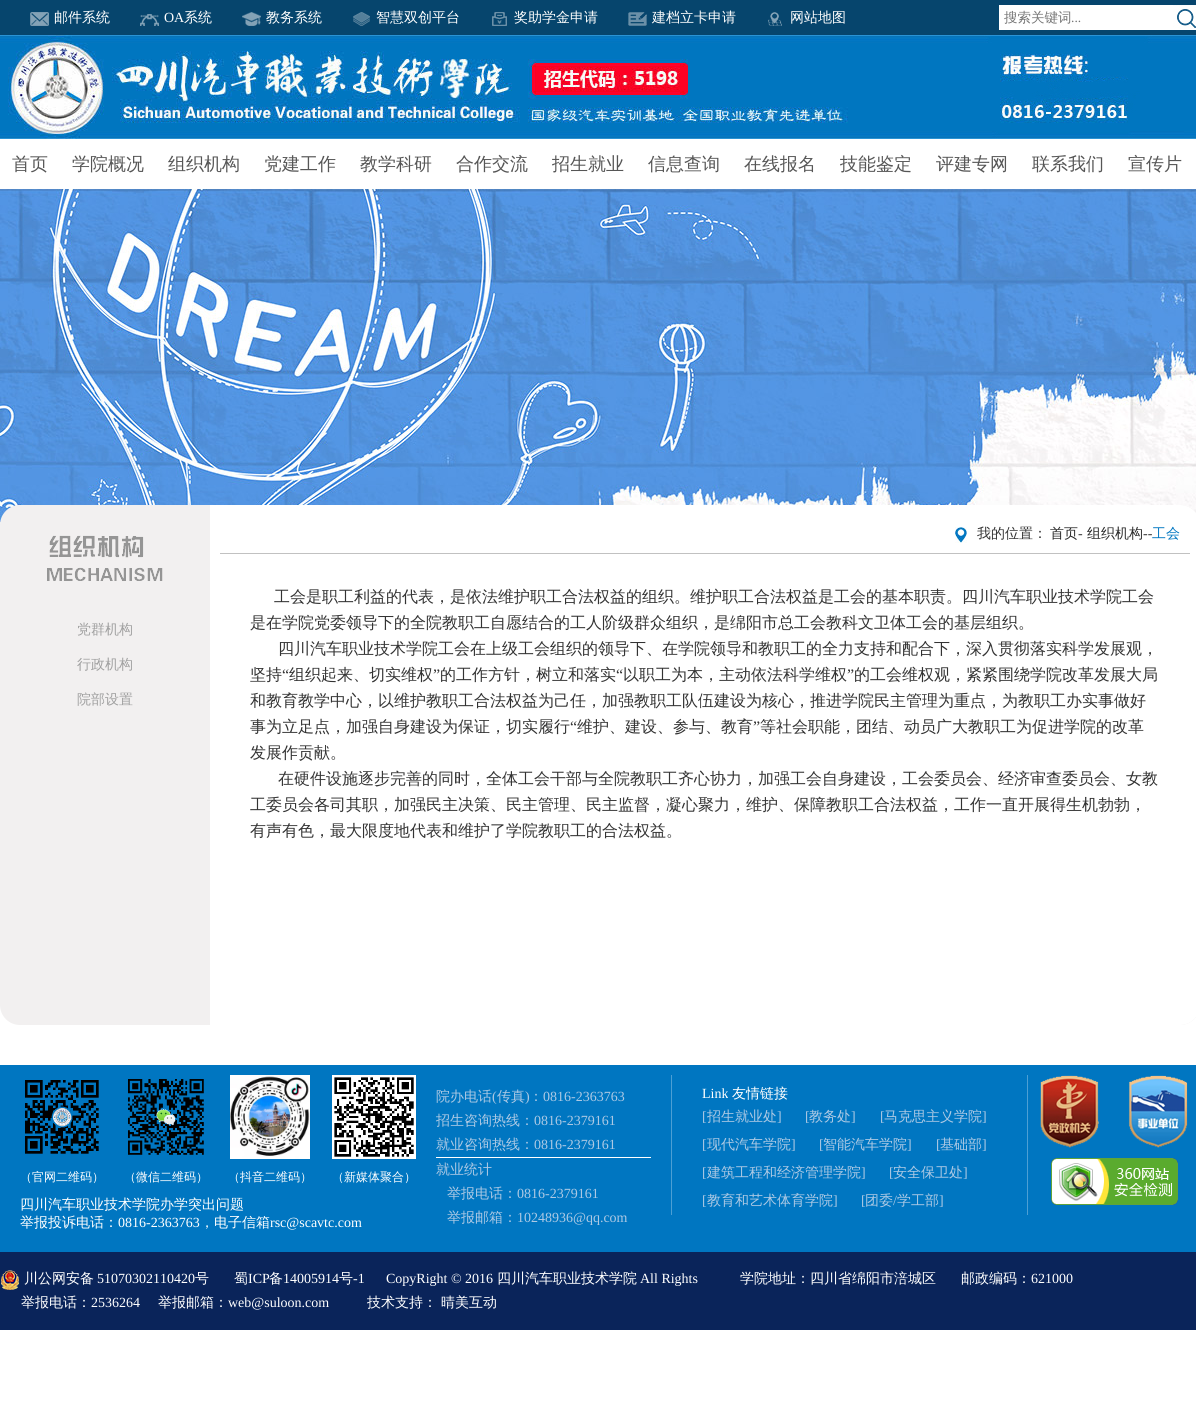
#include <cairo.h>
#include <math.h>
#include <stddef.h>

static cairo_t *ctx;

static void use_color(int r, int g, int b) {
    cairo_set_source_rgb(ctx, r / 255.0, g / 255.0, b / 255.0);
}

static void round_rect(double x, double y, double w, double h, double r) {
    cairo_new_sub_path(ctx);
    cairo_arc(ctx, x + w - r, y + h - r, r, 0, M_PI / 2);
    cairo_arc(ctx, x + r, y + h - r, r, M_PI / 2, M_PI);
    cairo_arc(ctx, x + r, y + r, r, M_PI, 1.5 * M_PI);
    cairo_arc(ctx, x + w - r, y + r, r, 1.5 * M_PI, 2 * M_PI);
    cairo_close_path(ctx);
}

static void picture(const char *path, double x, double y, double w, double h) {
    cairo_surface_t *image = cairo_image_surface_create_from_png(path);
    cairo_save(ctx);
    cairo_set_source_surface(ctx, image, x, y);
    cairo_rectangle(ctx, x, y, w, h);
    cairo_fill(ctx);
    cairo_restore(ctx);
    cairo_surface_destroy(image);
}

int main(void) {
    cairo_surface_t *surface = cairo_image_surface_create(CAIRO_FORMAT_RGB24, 1196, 1413);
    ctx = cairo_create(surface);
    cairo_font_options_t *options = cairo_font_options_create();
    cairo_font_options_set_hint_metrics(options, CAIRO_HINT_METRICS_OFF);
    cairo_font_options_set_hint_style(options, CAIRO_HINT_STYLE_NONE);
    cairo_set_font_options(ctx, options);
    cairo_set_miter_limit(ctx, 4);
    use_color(255, 255, 255);
    cairo_paint(ctx);
    use_color(6, 69, 109);
    cairo_rectangle(ctx, 0, 0, 1196, 35);
    cairo_fill(ctx);
    picture("img1.png", 30, 12, 19, 14);
    cairo_select_font_face(ctx, "WenQuanYi Zen Hei Medium", CAIRO_FONT_SLANT_NORMAL, CAIRO_FONT_WEIGHT_NORMAL);
    cairo_set_font_size(ctx, 14);
    use_color(255, 255, 255);
    cairo_move_to(ctx, 54, 22);
    cairo_show_text(ctx, "邮件系统");
    picture("img2.png", 140, 14, 19, 12);
    cairo_select_font_face(ctx, "Liberation Serif", CAIRO_FONT_SLANT_NORMAL, CAIRO_FONT_WEIGHT_NORMAL);
    cairo_move_to(ctx, 164, 22);
    cairo_show_text(ctx, "OA");
    cairo_select_font_face(ctx, "WenQuanYi Zen Hei Medium", CAIRO_FONT_SLANT_NORMAL, CAIRO_FONT_WEIGHT_NORMAL);
    cairo_move_to(ctx, 184, 22);
    cairo_show_text(ctx, "系统");
    picture("img3.png", 242, 12, 19, 14);
    cairo_move_to(ctx, 266, 22);
    cairo_show_text(ctx, "教务系统");
    picture("img4.png", 353, 12, 17, 14);
    cairo_move_to(ctx, 376, 22);
    cairo_show_text(ctx, "智慧双创平台");
    picture("img5.png", 492, 12, 15, 14);
    cairo_move_to(ctx, 514, 22);
    cairo_show_text(ctx, "奖助学金申请");
    picture("img6.png", 628, 12, 19, 14);
    cairo_move_to(ctx, 652, 22);
    cairo_show_text(ctx, "建档立卡申请");
    picture("img7.png", 768, 12, 14, 14);
    cairo_move_to(ctx, 790, 22);
    cairo_show_text(ctx, "网站地图");
    cairo_rectangle(ctx, 999, 5, 174, 25);
    cairo_fill(ctx);
    cairo_set_font_size(ctx, 13.5);
    use_color(117, 117, 117);
    cairo_move_to(ctx, 1004, 22);
    cairo_show_text(ctx, "搜索关键词");
    cairo_select_font_face(ctx, "Liberation Serif", CAIRO_FONT_SLANT_NORMAL, CAIRO_FONT_WEIGHT_NORMAL);
    cairo_move_to(ctx, 1071, 22);
    cairo_show_text(ctx, "...");
    picture("img8.png", 1173, 5, 23, 25);
    picture("img9.png", 0, 35, 1196, 104);
    cairo_select_font_face(ctx, "WenQuanYi Zen Hei Medium", CAIRO_FONT_SLANT_NORMAL, CAIRO_FONT_WEIGHT_NORMAL);
    cairo_set_font_size(ctx, 18);
    use_color(86, 86, 86);
    cairo_move_to(ctx, 12, 170);
    cairo_show_text(ctx, "首页");
    cairo_move_to(ctx, 72, 170);
    cairo_show_text(ctx, "学院概况");
    cairo_move_to(ctx, 168, 170);
    cairo_show_text(ctx, "组织机构");
    cairo_move_to(ctx, 264, 170);
    cairo_show_text(ctx, "党建工作");
    cairo_move_to(ctx, 360, 170);
    cairo_show_text(ctx, "教学科研");
    cairo_move_to(ctx, 456, 170);
    cairo_show_text(ctx, "合作交流");
    cairo_move_to(ctx, 552, 170);
    cairo_show_text(ctx, "招生就业");
    cairo_move_to(ctx, 648, 170);
    cairo_show_text(ctx, "信息查询");
    cairo_move_to(ctx, 744, 170);
    cairo_show_text(ctx, "在线报名");
    cairo_move_to(ctx, 840, 170);
    cairo_show_text(ctx, "技能鉴定");
    cairo_move_to(ctx, 936, 170);
    cairo_show_text(ctx, "评建专网");
    cairo_move_to(ctx, 1032, 170);
    cairo_show_text(ctx, "联系我们");
    cairo_move_to(ctx, 1128, 170);
    cairo_show_text(ctx, "宣传片");
    picture("img10.png", 0, 189, 1196, 336);
    use_color(242, 240, 240);
    round_rect(0, 505, 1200, 520, 20);
    cairo_fill(ctx);
    picture("img11.png", 47, 535, 116, 46);
    cairo_set_font_size(ctx, 14);
    use_color(160, 160, 160);
    cairo_move_to(ctx, 77, 634);
    cairo_show_text(ctx, "党群机构");
    cairo_move_to(ctx, 77, 669);
    cairo_show_text(ctx, "行政机构");
    cairo_move_to(ctx, 77, 704);
    cairo_show_text(ctx, "院部设置");
    use_color(255, 255, 255);
    cairo_new_path(ctx);
    cairo_move_to(ctx, 210, 505);
    cairo_line_to(ctx, 1180, 505);
    cairo_curve_to(ctx, 1191, 505, 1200, 514, 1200, 525);
    cairo_line_to(ctx, 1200, 1005);
    cairo_curve_to(ctx, 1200, 1016, 1191, 1025, 1180, 1025);
    cairo_line_to(ctx, 210, 1025);
    cairo_close_path(ctx);
    cairo_fill(ctx);
    use_color(193, 193, 193);
    cairo_rectangle(ctx, 220, 553, 970, 1);
    cairo_fill(ctx);
    picture("img12.png", 955, 527, 12, 16);
    use_color(51, 51, 51);
    cairo_move_to(ctx, 977, 538);
    cairo_show_text(ctx, "我的位置：");
    use_color(41, 41, 41);
    cairo_move_to(ctx, 1050, 538);
    cairo_show_text(ctx, "首页");
    cairo_select_font_face(ctx, "Liberation Serif", CAIRO_FONT_SLANT_NORMAL, CAIRO_FONT_WEIGHT_NORMAL);
    use_color(51, 51, 51);
    cairo_move_to(ctx, 1078, 538);
    cairo_show_text(ctx, "-");
    cairo_select_font_face(ctx, "WenQuanYi Zen Hei Medium", CAIRO_FONT_SLANT_NORMAL, CAIRO_FONT_WEIGHT_NORMAL);
    use_color(41, 41, 41);
    cairo_move_to(ctx, 1087, 538);
    cairo_show_text(ctx, "组织机构");
    cairo_select_font_face(ctx, "Liberation Serif", CAIRO_FONT_SLANT_NORMAL, CAIRO_FONT_WEIGHT_NORMAL);
    use_color(51, 51, 51);
    cairo_move_to(ctx, 1143, 538);
    cairo_show_text(ctx, "--");
    cairo_select_font_face(ctx, "WenQuanYi Zen Hei Medium", CAIRO_FONT_SLANT_NORMAL, CAIRO_FONT_WEIGHT_NORMAL);
    use_color(0, 118, 193);
    cairo_move_to(ctx, 1152, 538);
    cairo_show_text(ctx, "工会");
    cairo_set_font_size(ctx, 16);
    use_color(51, 51, 51);
    cairo_move_to(ctx, 274, 602);
    cairo_show_text(ctx, "工会是职工利益的代表，是依法维护职工合法权益的组织。维护职工合法权益是工会的基本职责。四川汽车职业技术学院工会");
    cairo_move_to(ctx, 250, 628);
    cairo_show_text(ctx, "是在学院党委领导下的全院教职工自愿结合的工人阶级群众组织，是绵阳市总工会教科文卫体工会的基层组织。");
    cairo_move_to(ctx, 278, 654);
    cairo_show_text(ctx, "四川汽车职业技术学院工会在上级工会组织的领导下、在学院领导和教职工的全力支持和配合下，深入贯彻落实科学发展观，");
    cairo_move_to(ctx, 250, 680);
    cairo_show_text(ctx, "坚持");
    cairo_select_font_face(ctx, "Liberation Serif", CAIRO_FONT_SLANT_NORMAL, CAIRO_FONT_WEIGHT_NORMAL);
    cairo_move_to(ctx, 282, 680);
    cairo_show_text(ctx, "“");
    cairo_select_font_face(ctx, "WenQuanYi Zen Hei Medium", CAIRO_FONT_SLANT_NORMAL, CAIRO_FONT_WEIGHT_NORMAL);
    cairo_move_to(ctx, 289, 680);
    cairo_show_text(ctx, "组织起来、切实维权");
    cairo_select_font_face(ctx, "Liberation Serif", CAIRO_FONT_SLANT_NORMAL, CAIRO_FONT_WEIGHT_NORMAL);
    cairo_move_to(ctx, 433, 680);
    cairo_show_text(ctx, "”");
    cairo_select_font_face(ctx, "WenQuanYi Zen Hei Medium", CAIRO_FONT_SLANT_NORMAL, CAIRO_FONT_WEIGHT_NORMAL);
    cairo_move_to(ctx, 440, 680);
    cairo_show_text(ctx, "的工作方针，树立和落实");
    cairo_select_font_face(ctx, "Liberation Serif", CAIRO_FONT_SLANT_NORMAL, CAIRO_FONT_WEIGHT_NORMAL);
    cairo_move_to(ctx, 616, 680);
    cairo_show_text(ctx, "“");
    cairo_select_font_face(ctx, "WenQuanYi Zen Hei Medium", CAIRO_FONT_SLANT_NORMAL, CAIRO_FONT_WEIGHT_NORMAL);
    cairo_move_to(ctx, 623, 680);
    cairo_show_text(ctx, "以职工为本，主动依法科学维权");
    cairo_select_font_face(ctx, "Liberation Serif", CAIRO_FONT_SLANT_NORMAL, CAIRO_FONT_WEIGHT_NORMAL);
    cairo_move_to(ctx, 847, 680);
    cairo_show_text(ctx, "”");
    cairo_select_font_face(ctx, "WenQuanYi Zen Hei Medium", CAIRO_FONT_SLANT_NORMAL, CAIRO_FONT_WEIGHT_NORMAL);
    cairo_move_to(ctx, 854, 680);
    cairo_show_text(ctx, "的工会维权观，紧紧围绕学院改革发展大局");
    cairo_move_to(ctx, 250, 706);
    cairo_show_text(ctx, "和教育教学中心，以维护教职工合法权益为己任，加强教职工队伍建设为核心，推进学院民主管理为重点，为教职工办实事做好");
    cairo_move_to(ctx, 250, 732);
    cairo_show_text(ctx, "事为立足点，加强自身建设为保证，切实履行");
    cairo_select_font_face(ctx, "Liberation Serif", CAIRO_FONT_SLANT_NORMAL, CAIRO_FONT_WEIGHT_NORMAL);
    cairo_move_to(ctx, 570, 732);
    cairo_show_text(ctx, "“");
    cairo_select_font_face(ctx, "WenQuanYi Zen Hei Medium", CAIRO_FONT_SLANT_NORMAL, CAIRO_FONT_WEIGHT_NORMAL);
    cairo_move_to(ctx, 577, 732);
    cairo_show_text(ctx, "维护、建设、参与、教育");
    cairo_select_font_face(ctx, "Liberation Serif", CAIRO_FONT_SLANT_NORMAL, CAIRO_FONT_WEIGHT_NORMAL);
    cairo_move_to(ctx, 753, 732);
    cairo_show_text(ctx, "”");
    cairo_select_font_face(ctx, "WenQuanYi Zen Hei Medium", CAIRO_FONT_SLANT_NORMAL, CAIRO_FONT_WEIGHT_NORMAL);
    cairo_move_to(ctx, 760, 732);
    cairo_show_text(ctx, "等社会职能，团结、动员广大教职工为促进学院的改革");
    cairo_move_to(ctx, 250, 758);
    cairo_show_text(ctx, "发展作贡献。");
    cairo_move_to(ctx, 278, 784);
    cairo_show_text(ctx, "在硬件设施逐步完善的同时，全体工会干部与全院教职工齐心协力，加强工会自身建设，工会委员会、经济审查委员会、女教");
    cairo_move_to(ctx, 250, 810);
    cairo_show_text(ctx, "工委员会各司其职，加强民主决策、民主管理、民主监督，凝心聚力，维护、保障教职工合法权益，工作一直开展得生机勃勃，");
    cairo_move_to(ctx, 250, 836);
    cairo_show_text(ctx, "有声有色，最大限度地代表和维护了学院教职工的合法权益。");
    use_color(0, 118, 193);
    cairo_rectangle(ctx, 0, 1065, 1196, 187);
    cairo_fill(ctx);
    picture("img13.png", 25, 1080, 74, 74);
    cairo_set_font_size(ctx, 12);
    use_color(255, 255, 255);
    cairo_move_to(ctx, 20, 1181);
    cairo_show_text(ctx, "（官网二维码）");
    picture("img14.png", 128, 1079, 76, 76);
    cairo_move_to(ctx, 124, 1181);
    cairo_show_text(ctx, "（微信二维码）");
    picture("img15.png", 230, 1075, 80, 84);
    cairo_move_to(ctx, 228, 1181);
    cairo_show_text(ctx, "（抖音二维码）");
    picture("img16.png", 332, 1075, 84, 84);
    cairo_move_to(ctx, 332, 1181);
    cairo_show_text(ctx, "（新媒体聚合）");
    cairo_set_font_size(ctx, 14);
    cairo_move_to(ctx, 20, 1209);
    cairo_show_text(ctx, "四川汽车职业技术学院办学突出问题");
    cairo_move_to(ctx, 20, 1227);
    cairo_show_text(ctx, "举报投诉电话：");
    cairo_select_font_face(ctx, "Liberation Serif", CAIRO_FONT_SLANT_NORMAL, CAIRO_FONT_WEIGHT_NORMAL);
    cairo_move_to(ctx, 118, 1227);
    cairo_show_text(ctx, "0816-2363763");
    cairo_select_font_face(ctx, "WenQuanYi Zen Hei Medium", CAIRO_FONT_SLANT_NORMAL, CAIRO_FONT_WEIGHT_NORMAL);
    cairo_move_to(ctx, 200, 1227);
    cairo_show_text(ctx, "，电子信箱");
    cairo_select_font_face(ctx, "Liberation Serif", CAIRO_FONT_SLANT_NORMAL, CAIRO_FONT_WEIGHT_NORMAL);
    cairo_move_to(ctx, 270, 1227);
    cairo_show_text(ctx, "rsc@scavtc.com");
    use_color(77, 159, 212);
    cairo_rectangle(ctx, 671, 1075, 1, 140);
    cairo_fill(ctx);
    cairo_select_font_face(ctx, "WenQuanYi Zen Hei Medium", CAIRO_FONT_SLANT_NORMAL, CAIRO_FONT_WEIGHT_NORMAL);
    use_color(173, 201, 228);
    cairo_move_to(ctx, 436, 1101);
    cairo_show_text(ctx, "院办电话");
    cairo_select_font_face(ctx, "Liberation Serif", CAIRO_FONT_SLANT_NORMAL, CAIRO_FONT_WEIGHT_NORMAL);
    cairo_move_to(ctx, 492, 1101);
    cairo_show_text(ctx, "(");
    cairo_select_font_face(ctx, "WenQuanYi Zen Hei Medium", CAIRO_FONT_SLANT_NORMAL, CAIRO_FONT_WEIGHT_NORMAL);
    cairo_move_to(ctx, 497, 1101);
    cairo_show_text(ctx, "传真");
    cairo_select_font_face(ctx, "Liberation Serif", CAIRO_FONT_SLANT_NORMAL, CAIRO_FONT_WEIGHT_NORMAL);
    cairo_move_to(ctx, 525, 1101);
    cairo_show_text(ctx, ")");
    cairo_select_font_face(ctx, "WenQuanYi Zen Hei Medium", CAIRO_FONT_SLANT_NORMAL, CAIRO_FONT_WEIGHT_NORMAL);
    cairo_move_to(ctx, 529, 1101);
    cairo_show_text(ctx, "：");
    cairo_select_font_face(ctx, "Liberation Serif", CAIRO_FONT_SLANT_NORMAL, CAIRO_FONT_WEIGHT_NORMAL);
    cairo_move_to(ctx, 543, 1101);
    cairo_show_text(ctx, "0816-2363763");
    cairo_select_font_face(ctx, "WenQuanYi Zen Hei Medium", CAIRO_FONT_SLANT_NORMAL, CAIRO_FONT_WEIGHT_NORMAL);
    cairo_move_to(ctx, 436, 1125);
    cairo_show_text(ctx, "招生咨询热线：");
    cairo_select_font_face(ctx, "Liberation Serif", CAIRO_FONT_SLANT_NORMAL, CAIRO_FONT_WEIGHT_NORMAL);
    cairo_move_to(ctx, 534, 1125);
    cairo_show_text(ctx, "0816-2379161");
    cairo_select_font_face(ctx, "WenQuanYi Zen Hei Medium", CAIRO_FONT_SLANT_NORMAL, CAIRO_FONT_WEIGHT_NORMAL);
    cairo_move_to(ctx, 436, 1149);
    cairo_show_text(ctx, "就业咨询热线：");
    cairo_select_font_face(ctx, "Liberation Serif", CAIRO_FONT_SLANT_NORMAL, CAIRO_FONT_WEIGHT_NORMAL);
    cairo_move_to(ctx, 534, 1149);
    cairo_show_text(ctx, "0816-2379161");
    use_color(255, 255, 255);
    cairo_rectangle(ctx, 436, 1157, 215, 1);
    cairo_fill(ctx);
    cairo_select_font_face(ctx, "WenQuanYi Zen Hei Medium", CAIRO_FONT_SLANT_NORMAL, CAIRO_FONT_WEIGHT_NORMAL);
    use_color(173, 201, 228);
    cairo_move_to(ctx, 436, 1174);
    cairo_show_text(ctx, "就业统计");
    cairo_move_to(ctx, 447, 1198);
    cairo_show_text(ctx, "举报电话：");
    cairo_select_font_face(ctx, "Liberation Serif", CAIRO_FONT_SLANT_NORMAL, CAIRO_FONT_WEIGHT_NORMAL);
    cairo_move_to(ctx, 517, 1198);
    cairo_show_text(ctx, "0816-2379161");
    cairo_select_font_face(ctx, "WenQuanYi Zen Hei Medium", CAIRO_FONT_SLANT_NORMAL, CAIRO_FONT_WEIGHT_NORMAL);
    cairo_move_to(ctx, 447, 1222);
    cairo_show_text(ctx, "举报邮箱：");
    cairo_select_font_face(ctx, "Liberation Serif", CAIRO_FONT_SLANT_NORMAL, CAIRO_FONT_WEIGHT_NORMAL);
    cairo_move_to(ctx, 517, 1222);
    cairo_show_text(ctx, "10248936@qq.com");
    use_color(77, 159, 212);
    cairo_rectangle(ctx, 1027, 1075, 1, 140);
    cairo_fill(ctx);
    use_color(255, 255, 255);
    cairo_move_to(ctx, 702, 1098);
    cairo_show_text(ctx, "Link");
    cairo_select_font_face(ctx, "WenQuanYi Zen Hei Medium", CAIRO_FONT_SLANT_NORMAL, CAIRO_FONT_WEIGHT_NORMAL);
    cairo_move_to(ctx, 732, 1098);
    cairo_show_text(ctx, "友情链接");
    cairo_select_font_face(ctx, "Liberation Serif", CAIRO_FONT_SLANT_NORMAL, CAIRO_FONT_WEIGHT_NORMAL);
    use_color(173, 201, 228);
    cairo_move_to(ctx, 702, 1121);
    cairo_show_text(ctx, "[");
    cairo_select_font_face(ctx, "WenQuanYi Zen Hei Medium", CAIRO_FONT_SLANT_NORMAL, CAIRO_FONT_WEIGHT_NORMAL);
    cairo_move_to(ctx, 707, 1121);
    cairo_show_text(ctx, "招生就业处");
    cairo_select_font_face(ctx, "Liberation Serif", CAIRO_FONT_SLANT_NORMAL, CAIRO_FONT_WEIGHT_NORMAL);
    cairo_move_to(ctx, 777, 1121);
    cairo_show_text(ctx, "]");
    cairo_move_to(ctx, 805, 1121);
    cairo_show_text(ctx, "[");
    cairo_select_font_face(ctx, "WenQuanYi Zen Hei Medium", CAIRO_FONT_SLANT_NORMAL, CAIRO_FONT_WEIGHT_NORMAL);
    cairo_move_to(ctx, 809, 1121);
    cairo_show_text(ctx, "教务处");
    cairo_select_font_face(ctx, "Liberation Serif", CAIRO_FONT_SLANT_NORMAL, CAIRO_FONT_WEIGHT_NORMAL);
    cairo_move_to(ctx, 851, 1121);
    cairo_show_text(ctx, "]");
    cairo_move_to(ctx, 880, 1121);
    cairo_show_text(ctx, "[");
    cairo_select_font_face(ctx, "WenQuanYi Zen Hei Medium", CAIRO_FONT_SLANT_NORMAL, CAIRO_FONT_WEIGHT_NORMAL);
    cairo_move_to(ctx, 884, 1121);
    cairo_show_text(ctx, "马克思主义学院");
    cairo_select_font_face(ctx, "Liberation Serif", CAIRO_FONT_SLANT_NORMAL, CAIRO_FONT_WEIGHT_NORMAL);
    cairo_move_to(ctx, 982, 1121);
    cairo_show_text(ctx, "]");
    cairo_move_to(ctx, 702, 1149);
    cairo_show_text(ctx, "[");
    cairo_select_font_face(ctx, "WenQuanYi Zen Hei Medium", CAIRO_FONT_SLANT_NORMAL, CAIRO_FONT_WEIGHT_NORMAL);
    cairo_move_to(ctx, 707, 1149);
    cairo_show_text(ctx, "现代汽车学院");
    cairo_select_font_face(ctx, "Liberation Serif", CAIRO_FONT_SLANT_NORMAL, CAIRO_FONT_WEIGHT_NORMAL);
    cairo_move_to(ctx, 791, 1149);
    cairo_show_text(ctx, "]");
    cairo_move_to(ctx, 819, 1149);
    cairo_show_text(ctx, "[");
    cairo_select_font_face(ctx, "WenQuanYi Zen Hei Medium", CAIRO_FONT_SLANT_NORMAL, CAIRO_FONT_WEIGHT_NORMAL);
    cairo_move_to(ctx, 823, 1149);
    cairo_show_text(ctx, "智能汽车学院");
    cairo_select_font_face(ctx, "Liberation Serif", CAIRO_FONT_SLANT_NORMAL, CAIRO_FONT_WEIGHT_NORMAL);
    cairo_move_to(ctx, 907, 1149);
    cairo_show_text(ctx, "]");
    cairo_move_to(ctx, 936, 1149);
    cairo_show_text(ctx, "[");
    cairo_select_font_face(ctx, "WenQuanYi Zen Hei Medium", CAIRO_FONT_SLANT_NORMAL, CAIRO_FONT_WEIGHT_NORMAL);
    cairo_move_to(ctx, 940, 1149);
    cairo_show_text(ctx, "基础部");
    cairo_select_font_face(ctx, "Liberation Serif", CAIRO_FONT_SLANT_NORMAL, CAIRO_FONT_WEIGHT_NORMAL);
    cairo_move_to(ctx, 982, 1149);
    cairo_show_text(ctx, "]");
    cairo_move_to(ctx, 702, 1177);
    cairo_show_text(ctx, "[");
    cairo_select_font_face(ctx, "WenQuanYi Zen Hei Medium", CAIRO_FONT_SLANT_NORMAL, CAIRO_FONT_WEIGHT_NORMAL);
    cairo_move_to(ctx, 707, 1177);
    cairo_show_text(ctx, "建筑工程和经济管理学院");
    cairo_select_font_face(ctx, "Liberation Serif", CAIRO_FONT_SLANT_NORMAL, CAIRO_FONT_WEIGHT_NORMAL);
    cairo_move_to(ctx, 861, 1177);
    cairo_show_text(ctx, "]");
    cairo_move_to(ctx, 889, 1177);
    cairo_show_text(ctx, "[");
    cairo_select_font_face(ctx, "WenQuanYi Zen Hei Medium", CAIRO_FONT_SLANT_NORMAL, CAIRO_FONT_WEIGHT_NORMAL);
    cairo_move_to(ctx, 893, 1177);
    cairo_show_text(ctx, "安全保卫处");
    cairo_select_font_face(ctx, "Liberation Serif", CAIRO_FONT_SLANT_NORMAL, CAIRO_FONT_WEIGHT_NORMAL);
    cairo_move_to(ctx, 963, 1177);
    cairo_show_text(ctx, "]");
    cairo_move_to(ctx, 702, 1205);
    cairo_show_text(ctx, "[");
    cairo_select_font_face(ctx, "WenQuanYi Zen Hei Medium", CAIRO_FONT_SLANT_NORMAL, CAIRO_FONT_WEIGHT_NORMAL);
    cairo_move_to(ctx, 707, 1205);
    cairo_show_text(ctx, "教育和艺术体育学院");
    cairo_select_font_face(ctx, "Liberation Serif", CAIRO_FONT_SLANT_NORMAL, CAIRO_FONT_WEIGHT_NORMAL);
    cairo_move_to(ctx, 833, 1205);
    cairo_show_text(ctx, "]");
    cairo_move_to(ctx, 861, 1205);
    cairo_show_text(ctx, "[");
    cairo_select_font_face(ctx, "WenQuanYi Zen Hei Medium", CAIRO_FONT_SLANT_NORMAL, CAIRO_FONT_WEIGHT_NORMAL);
    cairo_move_to(ctx, 865, 1205);
    cairo_show_text(ctx, "团委");
    cairo_select_font_face(ctx, "Liberation Serif", CAIRO_FONT_SLANT_NORMAL, CAIRO_FONT_WEIGHT_NORMAL);
    cairo_move_to(ctx, 893, 1205);
    cairo_show_text(ctx, "/");
    cairo_select_font_face(ctx, "WenQuanYi Zen Hei Medium", CAIRO_FONT_SLANT_NORMAL, CAIRO_FONT_WEIGHT_NORMAL);
    cairo_move_to(ctx, 897, 1205);
    cairo_show_text(ctx, "学工部");
    cairo_select_font_face(ctx, "Liberation Serif", CAIRO_FONT_SLANT_NORMAL, CAIRO_FONT_WEIGHT_NORMAL);
    cairo_move_to(ctx, 939, 1205);
    cairo_show_text(ctx, "]");
    picture("img17.png", 1040, 1075, 148, 73);
    picture("img18.png", 1051, 1158, 127, 47);
    use_color(10, 36, 90);
    cairo_rectangle(ctx, 0, 1252, 1196, 78);
    cairo_fill(ctx);
    picture("img19.png", 1, 1270, 18, 20);
    cairo_select_font_face(ctx, "WenQuanYi Zen Hei Medium", CAIRO_FONT_SLANT_NORMAL, CAIRO_FONT_WEIGHT_NORMAL);
    use_color(255, 255, 255);
    cairo_move_to(ctx, 24, 1283);
    cairo_show_text(ctx, "川公网安备");
    cairo_select_font_face(ctx, "Liberation Serif", CAIRO_FONT_SLANT_NORMAL, CAIRO_FONT_WEIGHT_NORMAL);
    cairo_move_to(ctx, 97, 1283);
    cairo_show_text(ctx, "51070302110420");
    cairo_select_font_face(ctx, "WenQuanYi Zen Hei Medium", CAIRO_FONT_SLANT_NORMAL, CAIRO_FONT_WEIGHT_NORMAL);
    cairo_move_to(ctx, 195, 1283);
    cairo_show_text(ctx, "号");
    cairo_move_to(ctx, 234, 1283);
    cairo_show_text(ctx, "蜀");
    cairo_select_font_face(ctx, "Liberation Serif", CAIRO_FONT_SLANT_NORMAL, CAIRO_FONT_WEIGHT_NORMAL);
    cairo_move_to(ctx, 248, 1283);
    cairo_show_text(ctx, "ICP");
    cairo_select_font_face(ctx, "WenQuanYi Zen Hei Medium", CAIRO_FONT_SLANT_NORMAL, CAIRO_FONT_WEIGHT_NORMAL);
    cairo_move_to(ctx, 269, 1283);
    cairo_show_text(ctx, "备");
    cairo_select_font_face(ctx, "Liberation Serif", CAIRO_FONT_SLANT_NORMAL, CAIRO_FONT_WEIGHT_NORMAL);
    cairo_move_to(ctx, 283, 1283);
    cairo_show_text(ctx, "14005914");
    cairo_select_font_face(ctx, "WenQuanYi Zen Hei Medium", CAIRO_FONT_SLANT_NORMAL, CAIRO_FONT_WEIGHT_NORMAL);
    cairo_move_to(ctx, 339, 1283);
    cairo_show_text(ctx, "号");
    cairo_select_font_face(ctx, "Liberation Serif", CAIRO_FONT_SLANT_NORMAL, CAIRO_FONT_WEIGHT_NORMAL);
    cairo_move_to(ctx, 353, 1283);
    cairo_show_text(ctx, "-1");
    cairo_move_to(ctx, 386, 1283);
    cairo_show_text(ctx, "CopyRight © 2016");
    cairo_select_font_face(ctx, "WenQuanYi Zen Hei Medium", CAIRO_FONT_SLANT_NORMAL, CAIRO_FONT_WEIGHT_NORMAL);
    cairo_move_to(ctx, 497, 1283);
    cairo_show_text(ctx, "四川汽车职业技术学院");
    cairo_select_font_face(ctx, "Liberation Serif", CAIRO_FONT_SLANT_NORMAL, CAIRO_FONT_WEIGHT_NORMAL);
    cairo_move_to(ctx, 640, 1283);
    cairo_show_text(ctx, "All Rights");
    cairo_select_font_face(ctx, "WenQuanYi Zen Hei Medium", CAIRO_FONT_SLANT_NORMAL, CAIRO_FONT_WEIGHT_NORMAL);
    cairo_move_to(ctx, 740, 1283);
    cairo_show_text(ctx, "学院地址：四川省绵阳市涪城区");
    cairo_move_to(ctx, 961, 1283);
    cairo_show_text(ctx, "邮政编码：");
    cairo_select_font_face(ctx, "Liberation Serif", CAIRO_FONT_SLANT_NORMAL, CAIRO_FONT_WEIGHT_NORMAL);
    cairo_move_to(ctx, 1031, 1283);
    cairo_show_text(ctx, "621000");
    cairo_select_font_face(ctx, "WenQuanYi Zen Hei Medium", CAIRO_FONT_SLANT_NORMAL, CAIRO_FONT_WEIGHT_NORMAL);
    cairo_move_to(ctx, 21, 1307);
    cairo_show_text(ctx, "举报电话：");
    cairo_select_font_face(ctx, "Liberation Serif", CAIRO_FONT_SLANT_NORMAL, CAIRO_FONT_WEIGHT_NORMAL);
    cairo_move_to(ctx, 91, 1307);
    cairo_show_text(ctx, "2536264");
    cairo_select_font_face(ctx, "WenQuanYi Zen Hei Medium", CAIRO_FONT_SLANT_NORMAL, CAIRO_FONT_WEIGHT_NORMAL);
    cairo_move_to(ctx, 158, 1307);
    cairo_show_text(ctx, "举报邮箱：");
    cairo_select_font_face(ctx, "Liberation Serif", CAIRO_FONT_SLANT_NORMAL, CAIRO_FONT_WEIGHT_NORMAL);
    cairo_move_to(ctx, 228, 1307);
    cairo_show_text(ctx, "web@suloon.com");
    cairo_select_font_face(ctx, "WenQuanYi Zen Hei Medium", CAIRO_FONT_SLANT_NORMAL, CAIRO_FONT_WEIGHT_NORMAL);
    cairo_move_to(ctx, 367, 1307);
    cairo_show_text(ctx, "技术支持：");
    cairo_move_to(ctx, 441, 1307);
    cairo_show_text(ctx, "晴美互动");
    cairo_surface_write_to_png(surface, "result.png");
    cairo_font_options_destroy(options);
    cairo_destroy(ctx);
    cairo_surface_destroy(surface);
    return 0;
}
